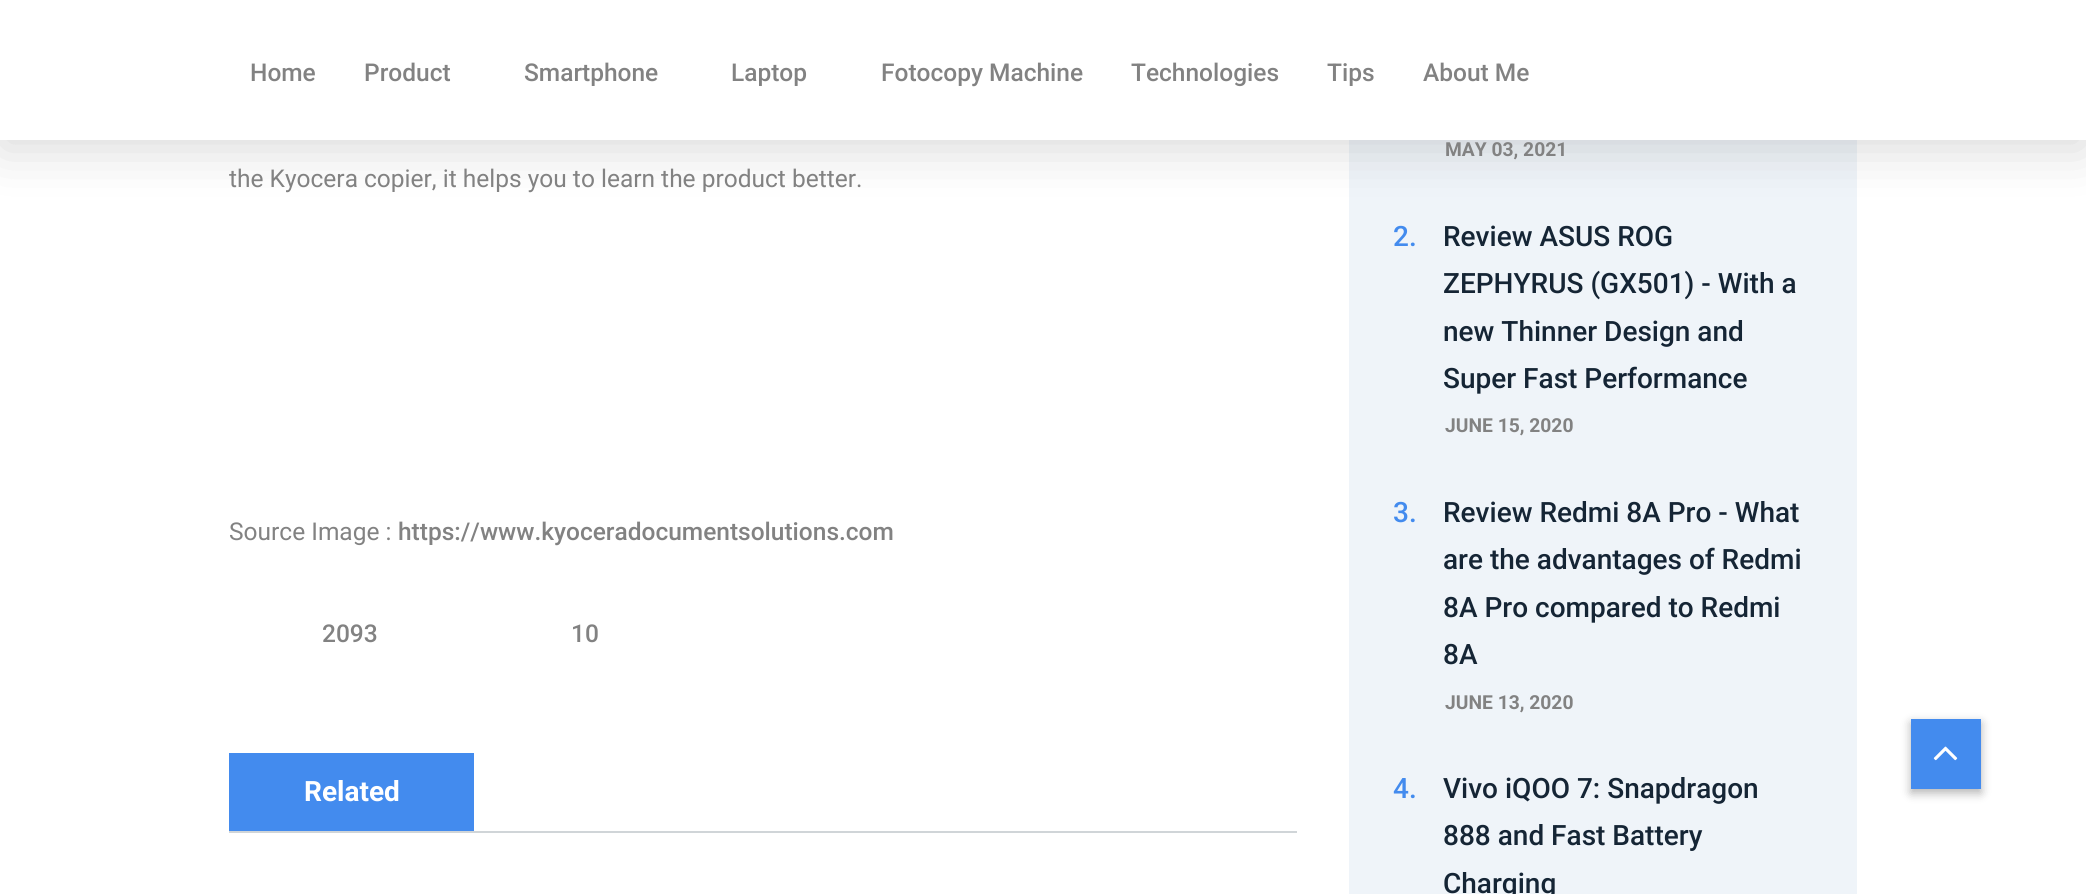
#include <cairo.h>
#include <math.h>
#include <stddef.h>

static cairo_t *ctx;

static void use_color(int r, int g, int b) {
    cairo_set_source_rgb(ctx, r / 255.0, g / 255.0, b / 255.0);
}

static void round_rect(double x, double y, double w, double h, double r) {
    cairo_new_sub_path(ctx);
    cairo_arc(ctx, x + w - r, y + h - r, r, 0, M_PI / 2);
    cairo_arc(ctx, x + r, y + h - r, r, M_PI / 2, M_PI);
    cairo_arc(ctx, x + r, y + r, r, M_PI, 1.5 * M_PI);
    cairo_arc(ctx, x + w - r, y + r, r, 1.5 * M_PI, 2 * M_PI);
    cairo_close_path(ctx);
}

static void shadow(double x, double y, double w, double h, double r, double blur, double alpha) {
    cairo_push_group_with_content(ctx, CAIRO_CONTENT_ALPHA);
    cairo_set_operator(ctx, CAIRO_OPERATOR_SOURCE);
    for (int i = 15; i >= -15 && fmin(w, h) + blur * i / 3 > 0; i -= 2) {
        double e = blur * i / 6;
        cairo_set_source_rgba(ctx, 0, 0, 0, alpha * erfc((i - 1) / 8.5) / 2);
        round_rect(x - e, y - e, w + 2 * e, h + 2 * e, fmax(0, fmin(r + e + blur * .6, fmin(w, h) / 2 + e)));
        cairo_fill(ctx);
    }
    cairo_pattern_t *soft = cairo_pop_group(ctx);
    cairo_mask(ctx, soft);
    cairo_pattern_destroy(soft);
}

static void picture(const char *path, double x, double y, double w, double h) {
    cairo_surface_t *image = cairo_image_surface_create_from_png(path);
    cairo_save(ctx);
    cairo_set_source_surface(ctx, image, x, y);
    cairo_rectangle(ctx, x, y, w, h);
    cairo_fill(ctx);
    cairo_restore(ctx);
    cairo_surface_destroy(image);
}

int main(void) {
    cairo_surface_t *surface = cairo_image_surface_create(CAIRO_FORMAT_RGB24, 2086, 894);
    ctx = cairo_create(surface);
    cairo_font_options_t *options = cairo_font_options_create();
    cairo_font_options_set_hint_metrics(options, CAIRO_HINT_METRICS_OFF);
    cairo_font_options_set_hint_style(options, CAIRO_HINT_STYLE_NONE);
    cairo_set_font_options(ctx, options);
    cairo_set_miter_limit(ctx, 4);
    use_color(255, 255, 255);
    cairo_paint(ctx);
    use_color(239, 244, 249);
    cairo_rectangle(ctx, 1349, 140, 508, 754);
    cairo_fill(ctx);
    use_color(0, 0, 0);
    shadow(0, 9, 2086, 140, 0, 26, 0.15);
    use_color(255, 255, 255);
    cairo_rectangle(ctx, 0, 0, 2086, 140);
    cairo_fill(ctx);
    cairo_select_font_face(ctx, "Roboto Medium", CAIRO_FONT_SLANT_NORMAL, CAIRO_FONT_WEIGHT_NORMAL);
    cairo_set_font_size(ctx, 24.5);
    use_color(130, 130, 130);
    cairo_move_to(ctx, 250, 81);
    cairo_show_text(ctx, "Home");
    cairo_move_to(ctx, 364, 81);
    cairo_show_text(ctx, "Product");
    cairo_move_to(ctx, 524, 81);
    cairo_show_text(ctx, "Smartphone");
    cairo_move_to(ctx, 731, 81);
    cairo_show_text(ctx, "Laptop");
    cairo_move_to(ctx, 881, 81);
    cairo_show_text(ctx, "Fotocopy Machine");
    cairo_move_to(ctx, 1131, 81);
    cairo_show_text(ctx, "Technologies");
    cairo_move_to(ctx, 1327, 81);
    cairo_show_text(ctx, "Tips");
    cairo_move_to(ctx, 1423, 81);
    cairo_show_text(ctx, "About Me");
    cairo_select_font_face(ctx, "Roboto", CAIRO_FONT_SLANT_NORMAL, CAIRO_FONT_WEIGHT_NORMAL);
    cairo_move_to(ctx, 229, 187);
    cairo_show_text(ctx, "the Kyocera copier, it helps you to learn the product better.");
    cairo_move_to(ctx, 229, 540);
    cairo_show_text(ctx, "Source Image :");
    cairo_select_font_face(ctx, "Roboto Medium", CAIRO_FONT_SLANT_NORMAL, CAIRO_FONT_WEIGHT_NORMAL);
    cairo_move_to(ctx, 398, 540);
    cairo_show_text(ctx, "https://www.kyoceradocumentsolutions.com");
    cairo_move_to(ctx, 322, 642);
    cairo_show_text(ctx, "2093");
    cairo_move_to(ctx, 571, 642);
    cairo_show_text(ctx, "10");
    use_color(208, 213, 216);
    cairo_rectangle(ctx, 229, 831, 1068, 2);
    cairo_fill(ctx);
    use_color(67, 139, 238);
    cairo_rectangle(ctx, 229, 753, 245, 78);
    cairo_fill(ctx);
    cairo_select_font_face(ctx, "Roboto", CAIRO_FONT_SLANT_NORMAL, CAIRO_FONT_WEIGHT_BOLD);
    cairo_set_font_size(ctx, 28);
    use_color(255, 255, 255);
    cairo_move_to(ctx, 304, 801);
    cairo_show_text(ctx, "Related");
    cairo_set_font_size(ctx, 19.25);
    use_color(130, 130, 130);
    cairo_move_to(ctx, 1445, 156);
    cairo_show_text(ctx, "MAY 03, 2021");
    cairo_select_font_face(ctx, "Roboto Medium", CAIRO_FONT_SLANT_NORMAL, CAIRO_FONT_WEIGHT_NORMAL);
    cairo_set_font_size(ctx, 28);
    use_color(67, 139, 238);
    cairo_move_to(ctx, 1393, 246);
    cairo_show_text(ctx, "2.");
    use_color(21, 37, 53);
    cairo_move_to(ctx, 1443, 246);
    cairo_show_text(ctx, "Review ASUS ROG");
    cairo_move_to(ctx, 1443, 293);
    cairo_show_text(ctx, "ZEPHYRUS (GX501) - With a");
    cairo_move_to(ctx, 1443, 341);
    cairo_show_text(ctx, "new Thinner Design and");
    cairo_move_to(ctx, 1443, 388);
    cairo_show_text(ctx, "Super Fast Performance");
    cairo_select_font_face(ctx, "Roboto", CAIRO_FONT_SLANT_NORMAL, CAIRO_FONT_WEIGHT_BOLD);
    cairo_set_font_size(ctx, 19.25);
    use_color(130, 130, 130);
    cairo_move_to(ctx, 1445, 432);
    cairo_show_text(ctx, "JUNE 15, 2020");
    cairo_select_font_face(ctx, "Roboto Medium", CAIRO_FONT_SLANT_NORMAL, CAIRO_FONT_WEIGHT_NORMAL);
    cairo_set_font_size(ctx, 28);
    use_color(67, 139, 238);
    cairo_move_to(ctx, 1393, 522);
    cairo_show_text(ctx, "3.");
    use_color(21, 37, 53);
    cairo_move_to(ctx, 1443, 522);
    cairo_show_text(ctx, "Review Redmi 8A Pro - What");
    cairo_move_to(ctx, 1443, 569);
    cairo_show_text(ctx, "are the advantages of Redmi");
    cairo_move_to(ctx, 1443, 617);
    cairo_show_text(ctx, "8A Pro compared to Redmi");
    cairo_move_to(ctx, 1443, 664);
    cairo_show_text(ctx, "8A");
    cairo_select_font_face(ctx, "Roboto", CAIRO_FONT_SLANT_NORMAL, CAIRO_FONT_WEIGHT_BOLD);
    cairo_set_font_size(ctx, 19.25);
    use_color(130, 130, 130);
    cairo_move_to(ctx, 1445, 709);
    cairo_show_text(ctx, "JUNE 13, 2020");
    cairo_select_font_face(ctx, "Roboto Medium", CAIRO_FONT_SLANT_NORMAL, CAIRO_FONT_WEIGHT_NORMAL);
    cairo_set_font_size(ctx, 28);
    use_color(67, 139, 238);
    cairo_move_to(ctx, 1393, 798);
    cairo_show_text(ctx, "4.");
    use_color(21, 37, 53);
    cairo_move_to(ctx, 1443, 798);
    cairo_show_text(ctx, "Vivo iQOO 7: Snapdragon");
    cairo_move_to(ctx, 1443, 845);
    cairo_show_text(ctx, "888 and Fast Battery");
    cairo_move_to(ctx, 1443, 893);
    cairo_show_text(ctx, "Charging");
    use_color(0, 0, 0);
    shadow(1911, 723, 70, 70, 0, 5, 0.3);
    use_color(67, 139, 238);
    cairo_rectangle(ctx, 1911, 719, 70, 70);
    cairo_fill(ctx);
    picture("img1.png", 1933, 746, 25, 15);
    cairo_surface_write_to_png(surface, "result.png");
    cairo_font_options_destroy(options);
    cairo_destroy(ctx);
    cairo_surface_destroy(surface);
    return 0;
}
